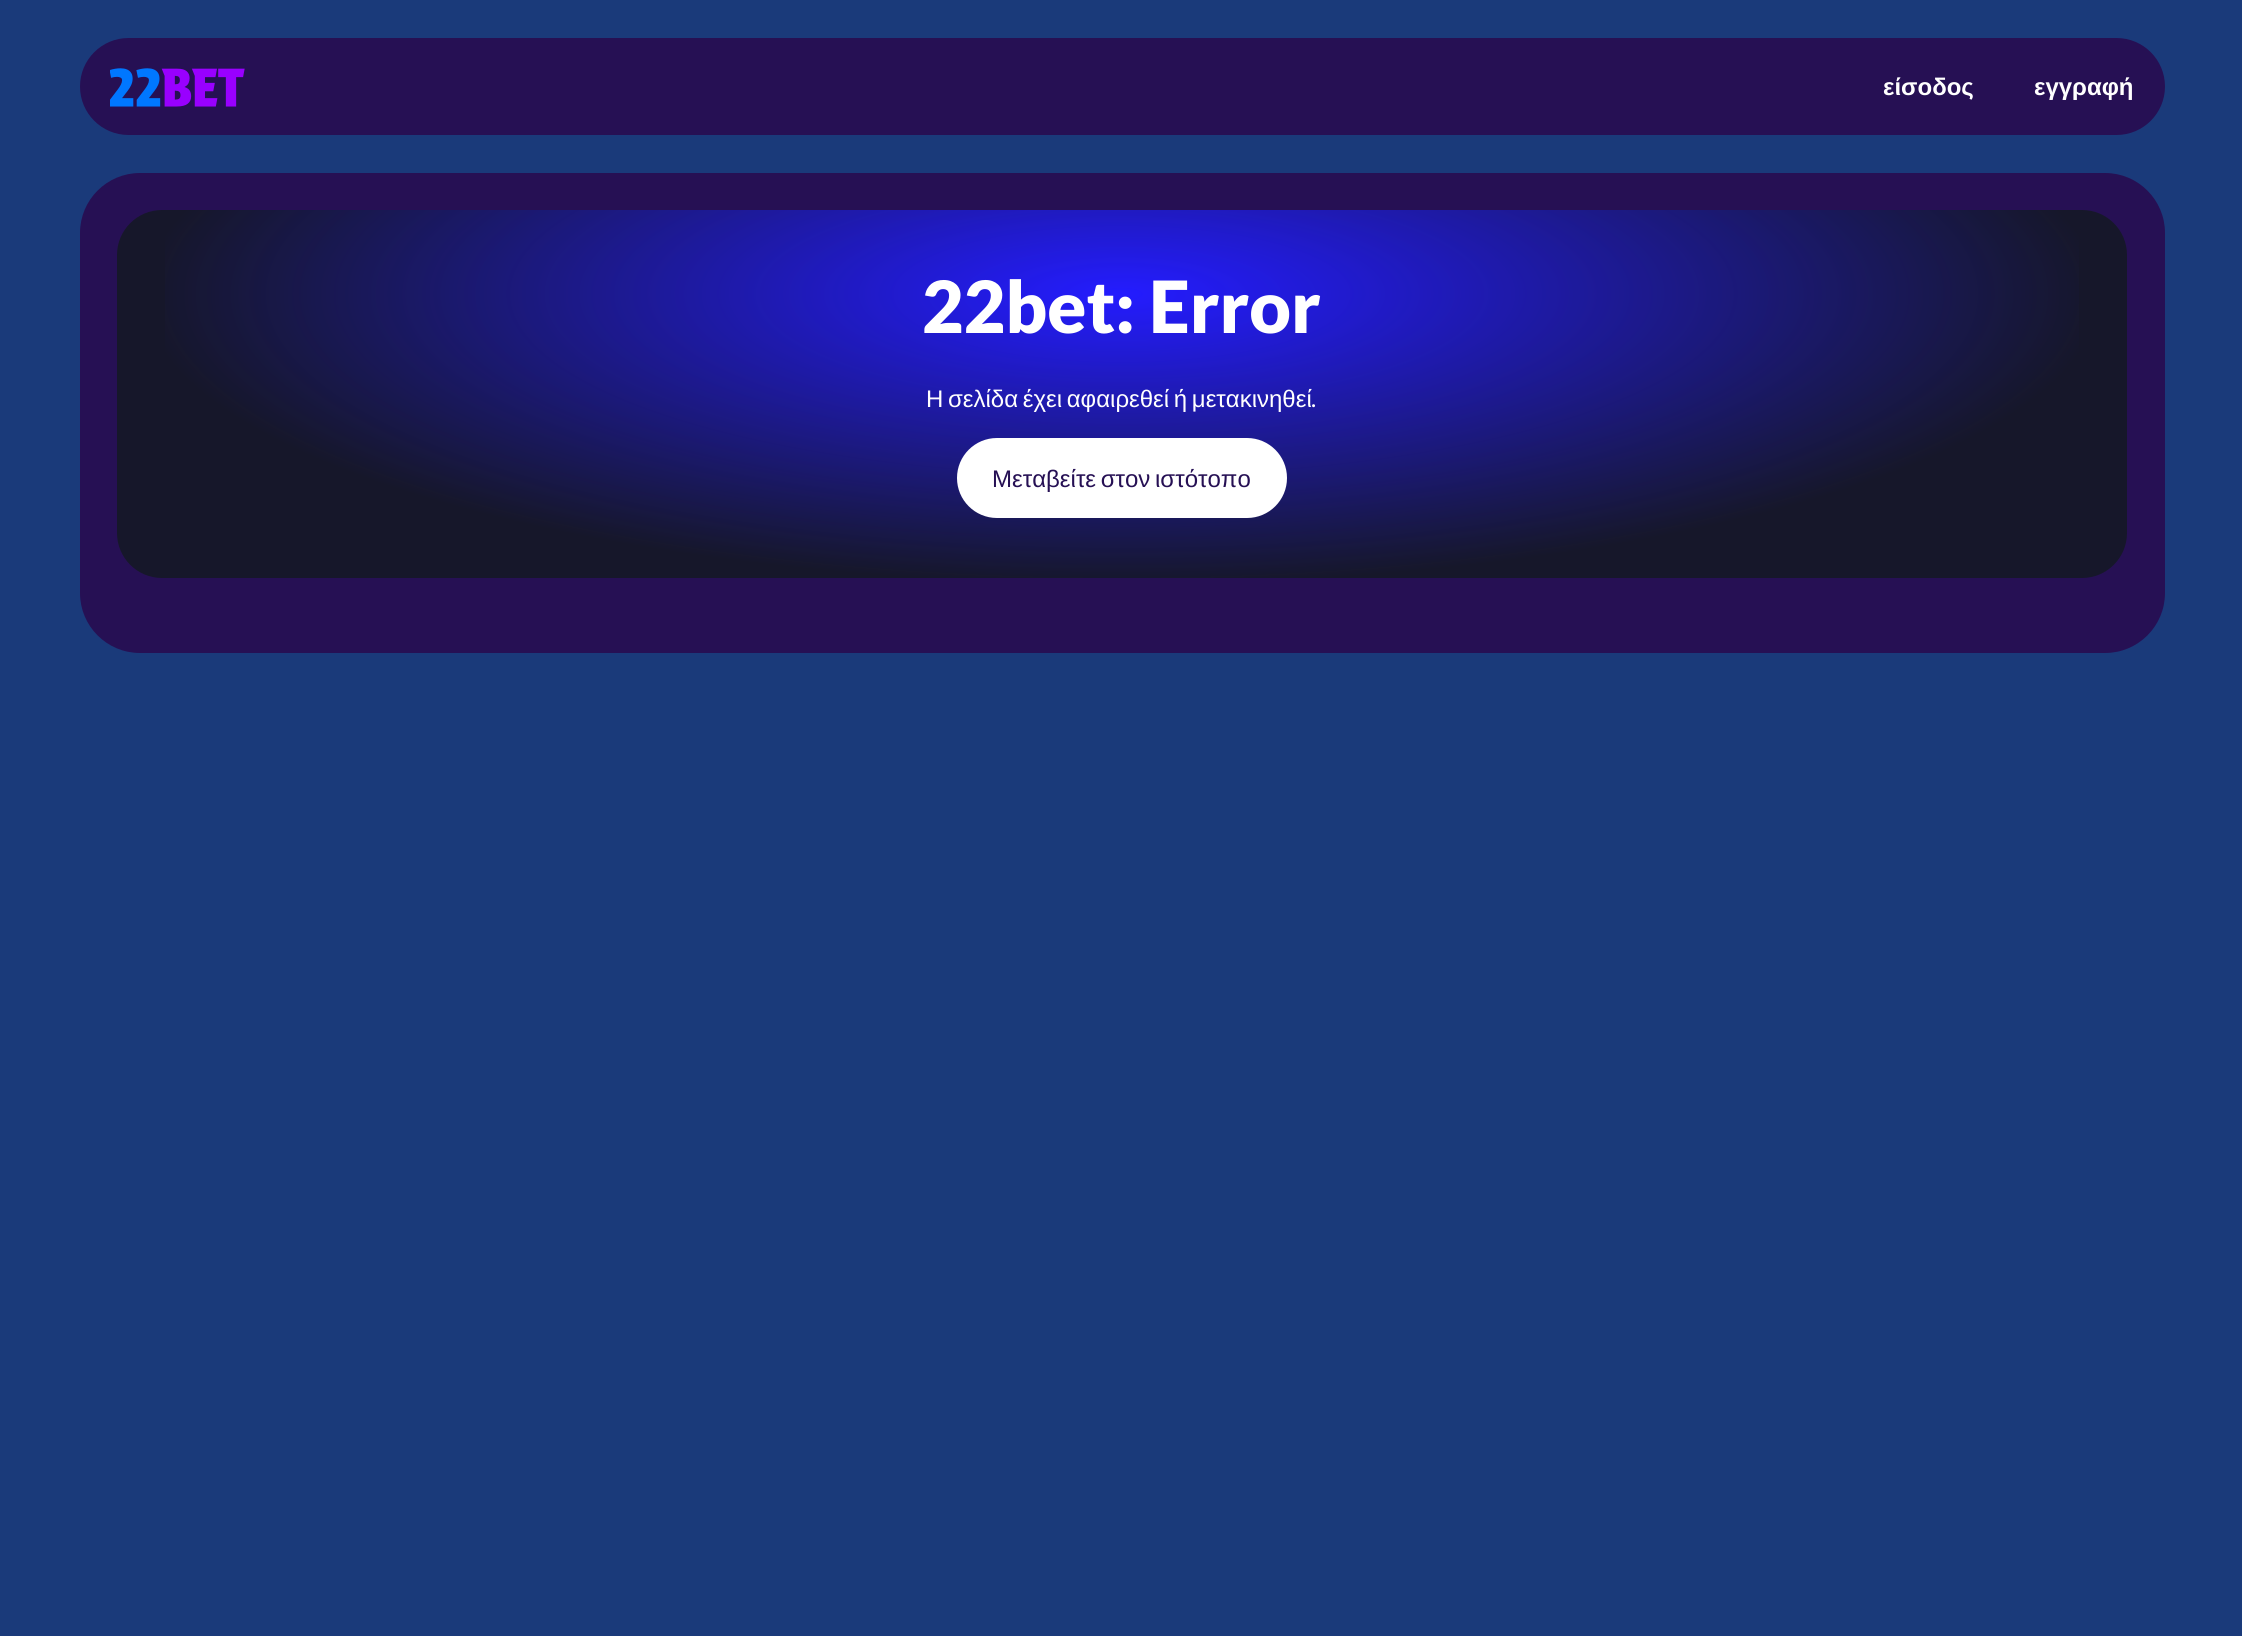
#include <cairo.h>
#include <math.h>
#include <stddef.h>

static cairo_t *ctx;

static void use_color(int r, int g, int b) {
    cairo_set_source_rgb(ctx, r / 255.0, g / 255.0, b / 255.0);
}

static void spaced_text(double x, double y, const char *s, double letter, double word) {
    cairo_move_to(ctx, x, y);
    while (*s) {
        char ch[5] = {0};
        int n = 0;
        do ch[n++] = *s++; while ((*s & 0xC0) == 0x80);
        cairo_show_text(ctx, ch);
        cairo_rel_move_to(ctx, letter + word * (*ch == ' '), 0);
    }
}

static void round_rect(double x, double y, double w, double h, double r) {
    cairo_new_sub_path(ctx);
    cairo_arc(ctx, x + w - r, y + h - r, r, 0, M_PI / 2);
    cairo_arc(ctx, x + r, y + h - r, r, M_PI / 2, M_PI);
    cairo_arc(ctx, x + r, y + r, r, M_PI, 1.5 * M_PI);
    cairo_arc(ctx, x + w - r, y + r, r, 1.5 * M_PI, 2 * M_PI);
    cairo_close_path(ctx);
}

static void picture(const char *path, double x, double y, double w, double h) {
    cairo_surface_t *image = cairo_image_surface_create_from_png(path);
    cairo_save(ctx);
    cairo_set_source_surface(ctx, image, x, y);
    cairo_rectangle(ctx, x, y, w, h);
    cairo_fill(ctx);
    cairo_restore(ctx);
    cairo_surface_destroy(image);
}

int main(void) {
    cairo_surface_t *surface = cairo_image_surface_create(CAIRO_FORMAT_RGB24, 2242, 1636);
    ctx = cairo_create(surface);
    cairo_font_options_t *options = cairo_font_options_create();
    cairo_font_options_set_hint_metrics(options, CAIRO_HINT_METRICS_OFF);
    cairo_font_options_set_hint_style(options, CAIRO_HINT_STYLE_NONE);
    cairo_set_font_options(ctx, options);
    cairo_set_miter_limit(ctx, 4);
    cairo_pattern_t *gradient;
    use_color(26, 58, 122);
    cairo_paint(ctx);
    use_color(38, 16, 84);
    round_rect(80, 38, 2085, 97, 48.5);
    cairo_fill(ctx);
    picture("img1.png", 110, 68, 135, 39);
    cairo_select_font_face(ctx, "Liberation Sans", CAIRO_FONT_SLANT_NORMAL, CAIRO_FONT_WEIGHT_BOLD);
    cairo_set_font_size(ctx, 24);
    use_color(255, 255, 255);
    cairo_move_to(ctx, 1883, 95);
    cairo_show_text(ctx, "είσοδος");
    cairo_move_to(ctx, 2034, 95);
    cairo_show_text(ctx, "εγγραφή");
    use_color(38, 16, 84);
    round_rect(80, 173, 2085, 480, 60);
    cairo_fill(ctx);
    use_color(22, 23, 42);
    round_rect(117, 210, 2010, 368, 45);
    cairo_fill(ctx);
    gradient = cairo_pattern_create_radial(0, 0, 0, 0, 0, 1);
    cairo_pattern_set_matrix(gradient, &(cairo_matrix_t){1.0 / 982, 0, 0, 1.0 / 290, -1.0 * 1122 / 982, -1.0 * 294 / 290});
    cairo_pattern_add_color_stop_rgba(gradient, 0, 0.141, 0.11, 1, 1);
    cairo_pattern_add_color_stop_rgba(gradient, 1, 0.141, 0.11, 1, 0);
    cairo_set_source(ctx, gradient);
    cairo_pattern_destroy(gradient);
    cairo_rectangle(ctx, 165, 210, 1914, 368);
    cairo_fill(ctx);
    cairo_select_font_face(ctx, "Lato Black", CAIRO_FONT_SLANT_NORMAL, CAIRO_FONT_WEIGHT_NORMAL);
    cairo_set_font_size(ctx, 72);
    use_color(255, 255, 255);
    cairo_move_to(ctx, 922, 333);
    cairo_show_text(ctx, "22bet: Error");
    cairo_select_font_face(ctx, "Liberation Sans", CAIRO_FONT_SLANT_NORMAL, CAIRO_FONT_WEIGHT_NORMAL);
    cairo_set_font_size(ctx, 24);
    spaced_text(926, 407, "Η σελίδα έχει αφαιρεθεί ή μετακινηθεί", 0, -2);
    cairo_select_font_face(ctx, "Lato", CAIRO_FONT_SLANT_NORMAL, CAIRO_FONT_WEIGHT_NORMAL);
    cairo_move_to(ctx, 1311, 407);
    cairo_show_text(ctx, ".");
    round_rect(957, 438, 330, 80, 40);
    cairo_fill(ctx);
    cairo_select_font_face(ctx, "Liberation Sans", CAIRO_FONT_SLANT_NORMAL, CAIRO_FONT_WEIGHT_NORMAL);
    use_color(38, 16, 84);
    spaced_text(992, 487, "Μεταβείτε στον ιστότοπο", 0, -2);
    cairo_surface_write_to_png(surface, "result.png");
    cairo_font_options_destroy(options);
    cairo_destroy(ctx);
    cairo_surface_destroy(surface);
    return 0;
}
